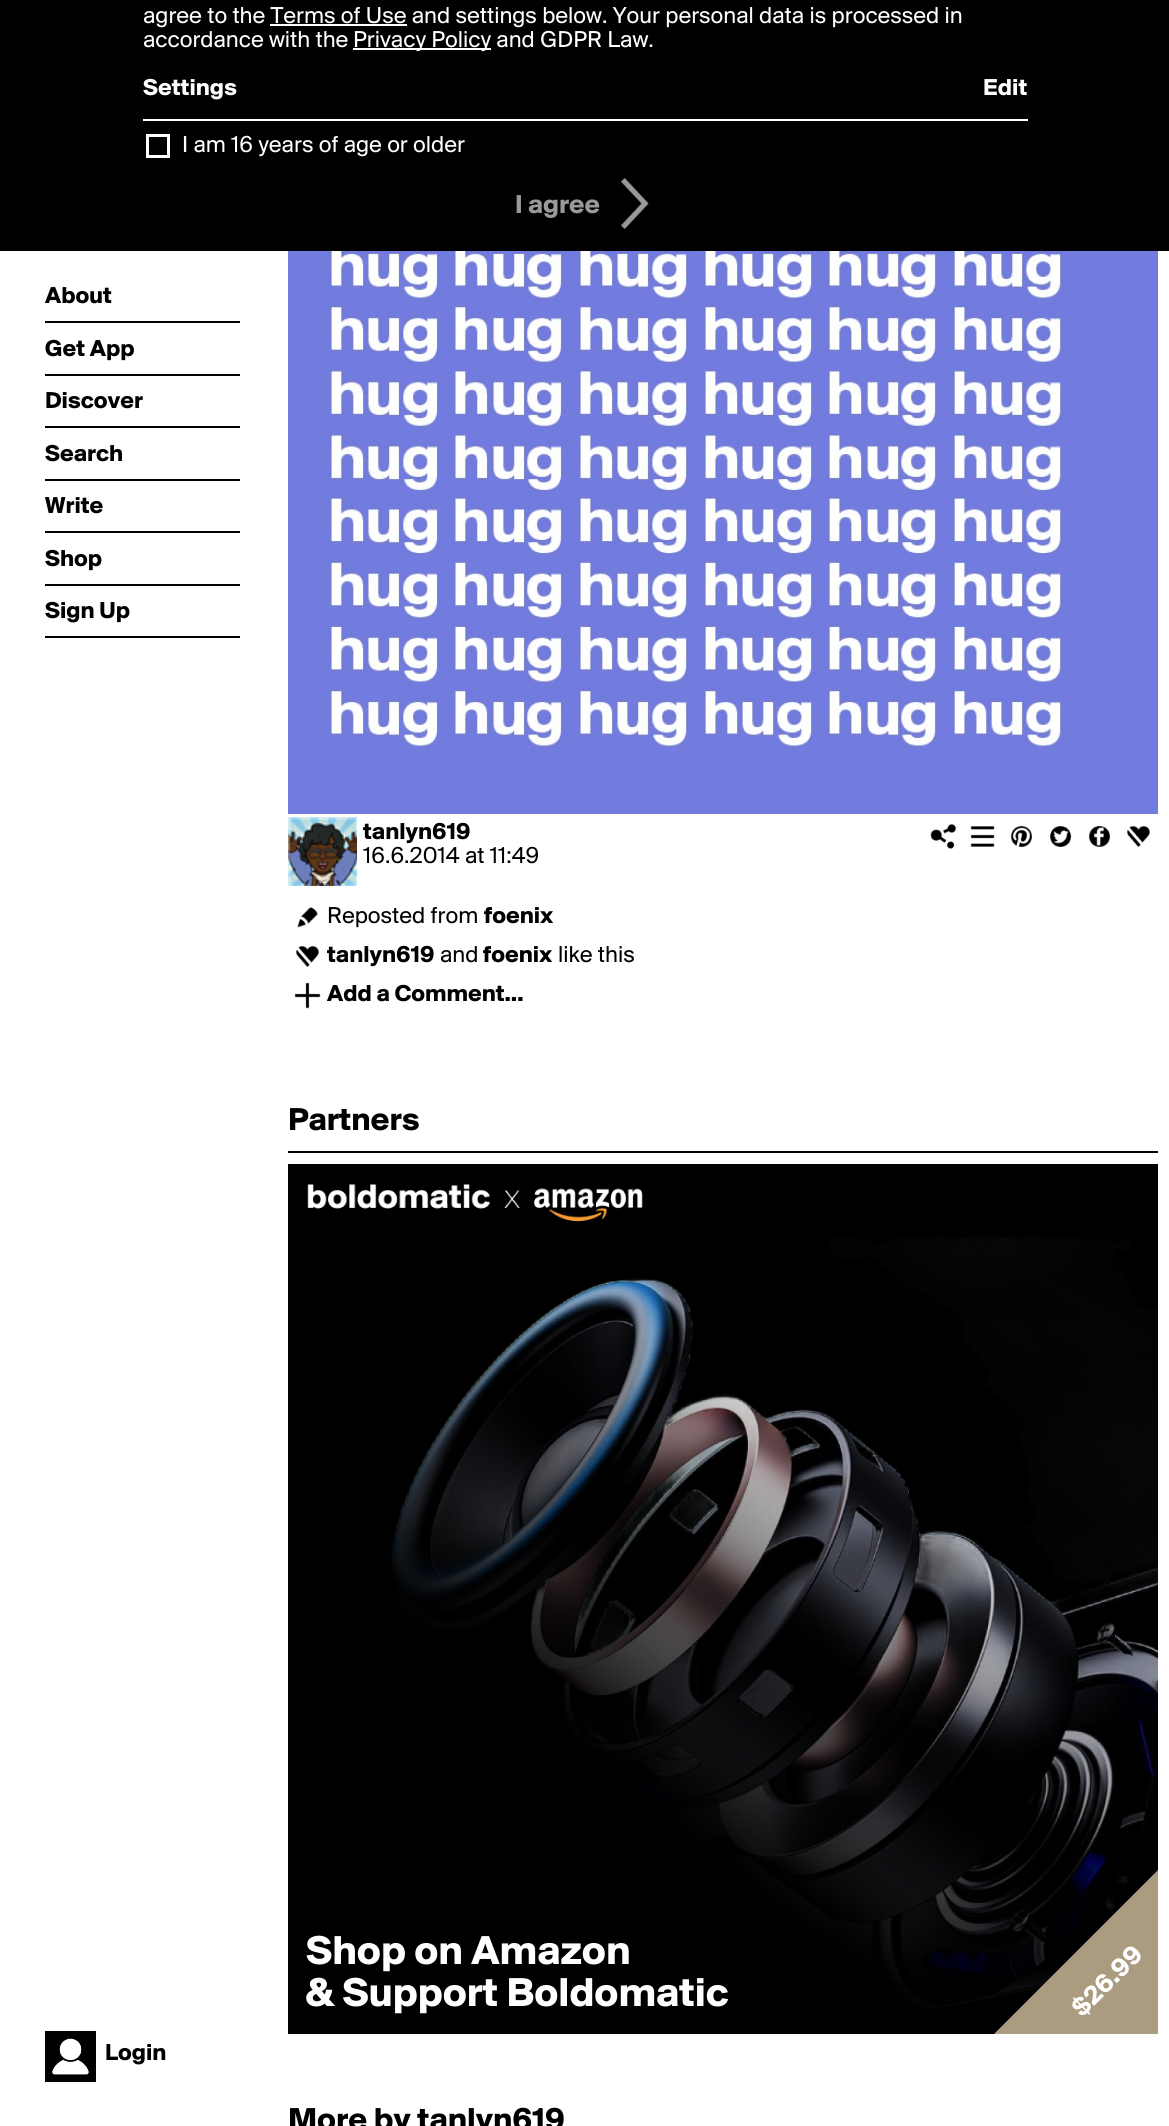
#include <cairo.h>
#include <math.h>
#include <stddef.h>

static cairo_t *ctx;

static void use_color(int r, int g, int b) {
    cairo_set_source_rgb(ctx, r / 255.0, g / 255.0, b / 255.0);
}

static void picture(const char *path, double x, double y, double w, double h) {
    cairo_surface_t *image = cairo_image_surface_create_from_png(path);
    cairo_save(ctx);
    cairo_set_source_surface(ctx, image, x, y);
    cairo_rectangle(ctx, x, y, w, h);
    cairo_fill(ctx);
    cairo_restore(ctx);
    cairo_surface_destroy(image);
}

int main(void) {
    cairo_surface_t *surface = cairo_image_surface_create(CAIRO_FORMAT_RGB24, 1169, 2126);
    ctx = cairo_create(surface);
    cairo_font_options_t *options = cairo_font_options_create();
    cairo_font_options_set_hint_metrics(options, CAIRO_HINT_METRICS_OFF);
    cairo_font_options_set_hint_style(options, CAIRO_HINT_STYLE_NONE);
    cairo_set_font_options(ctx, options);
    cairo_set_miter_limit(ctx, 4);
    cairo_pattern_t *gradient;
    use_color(255, 255, 255);
    cairo_paint(ctx);
    use_color(0, 0, 0);
    cairo_rectangle(ctx, 0, 0, 1169, 251);
    cairo_fill(ctx);
    cairo_select_font_face(ctx, "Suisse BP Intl", CAIRO_FONT_SLANT_NORMAL, CAIRO_FONT_WEIGHT_NORMAL);
    cairo_set_font_size(ctx, 24);
    use_color(255, 255, 255);
    cairo_move_to(ctx, 143, 23);
    cairo_show_text(ctx, "agree to the Terms of Use and settings below. Your personal data is processed in");
    cairo_rectangle(ctx, 270, 24, 137, 2);
    cairo_fill(ctx);
    cairo_move_to(ctx, 143, 47);
    cairo_show_text(ctx, "accordance with the");
    cairo_rectangle(ctx, 353, 48, 138, 2);
    cairo_fill(ctx);
    cairo_move_to(ctx, 353, 47);
    cairo_show_text(ctx, "Privacy Policy and GDPR Law.");
    cairo_select_font_face(ctx, "Suisse BP Intl", CAIRO_FONT_SLANT_NORMAL, CAIRO_FONT_WEIGHT_BOLD);
    cairo_move_to(ctx, 143, 95);
    cairo_show_text(ctx, "Settings");
    cairo_move_to(ctx, 983, 95);
    cairo_show_text(ctx, "Edit");
    cairo_rectangle(ctx, 143, 119, 885, 2);
    cairo_fill(ctx);
    cairo_rectangle(ctx, 147.5, 135.5, 21, 21);
    cairo_set_line_width(ctx, 3);
    cairo_stroke(ctx);
    cairo_select_font_face(ctx, "Suisse BP Intl", CAIRO_FONT_SLANT_NORMAL, CAIRO_FONT_WEIGHT_NORMAL);
    cairo_move_to(ctx, 182, 152);
    cairo_show_text(ctx, "I am 16 years of age or older");
    cairo_select_font_face(ctx, "Suisse BP Intl", CAIRO_FONT_SLANT_NORMAL, CAIRO_FONT_WEIGHT_BOLD);
    cairo_set_font_size(ctx, 27);
    use_color(153, 153, 153);
    cairo_move_to(ctx, 515, 213);
    cairo_show_text(ctx, "I agree");
    picture("img1.png", 621, 178, 28, 51);
    use_color(0, 0, 0);
    cairo_rectangle(ctx, 45, 321, 195, 2);
    cairo_fill(ctx);
    cairo_set_font_size(ctx, 24);
    cairo_move_to(ctx, 45, 303);
    cairo_show_text(ctx, "About");
    cairo_rectangle(ctx, 45, 374, 195, 2);
    cairo_fill(ctx);
    cairo_move_to(ctx, 45, 356);
    cairo_show_text(ctx, "Get App");
    cairo_rectangle(ctx, 45, 426, 195, 2);
    cairo_fill(ctx);
    cairo_move_to(ctx, 45, 408);
    cairo_show_text(ctx, "Discover");
    cairo_rectangle(ctx, 45, 479, 195, 2);
    cairo_fill(ctx);
    cairo_move_to(ctx, 45, 461);
    cairo_show_text(ctx, "Search");
    cairo_rectangle(ctx, 45, 531, 195, 2);
    cairo_fill(ctx);
    cairo_move_to(ctx, 45, 513);
    cairo_show_text(ctx, "Write");
    cairo_rectangle(ctx, 45, 584, 195, 2);
    cairo_fill(ctx);
    cairo_move_to(ctx, 45, 566);
    cairo_show_text(ctx, "Shop");
    cairo_rectangle(ctx, 45, 636, 195, 2);
    cairo_fill(ctx);
    cairo_move_to(ctx, 45, 618);
    cairo_show_text(ctx, "Sign Up");
    picture("img2.png", 45, 2031, 51, 51);
    cairo_move_to(ctx, 105, 2060);
    cairo_show_text(ctx, "Login");
    picture("img3.png", 288, 251, 870, 563);
    picture("img4.png", 288, 817, 69, 69);
    cairo_move_to(ctx, 363, 839);
    cairo_show_text(ctx, "tanlyn619");
    cairo_select_font_face(ctx, "Suisse BP Intl", CAIRO_FONT_SLANT_NORMAL, CAIRO_FONT_WEIGHT_NORMAL);
    cairo_move_to(ctx, 363, 863);
    cairo_show_text(ctx, "16.6.2014 at 11:49");
    picture("img5.png", 930, 824, 27, 25);
    picture("img6.png", 970, 826, 25, 21);
    picture("img7.png", 1010, 825, 23, 23);
    picture("img8.png", 1050, 825, 22, 23);
    picture("img9.png", 1088, 825, 23, 22);
    picture("img10.png", 1127, 826, 23, 21);
    picture("img11.png", 297, 907, 21, 21);
    cairo_move_to(ctx, 327, 923);
    cairo_show_text(ctx, "Reposted from");
    cairo_select_font_face(ctx, "Suisse BP Intl", CAIRO_FONT_SLANT_NORMAL, CAIRO_FONT_WEIGHT_BOLD);
    cairo_move_to(ctx, 484, 923);
    cairo_show_text(ctx, "foenix");
    picture("img10.png", 296, 946, 23, 21);
    cairo_move_to(ctx, 327, 962);
    cairo_show_text(ctx, "tanlyn619");
    cairo_select_font_face(ctx, "Suisse BP Intl", CAIRO_FONT_SLANT_NORMAL, CAIRO_FONT_WEIGHT_NORMAL);
    cairo_move_to(ctx, 440, 962);
    cairo_show_text(ctx, "and");
    cairo_select_font_face(ctx, "Suisse BP Intl", CAIRO_FONT_SLANT_NORMAL, CAIRO_FONT_WEIGHT_BOLD);
    cairo_move_to(ctx, 483, 962);
    cairo_show_text(ctx, "foenix");
    cairo_select_font_face(ctx, "Suisse BP Intl", CAIRO_FONT_SLANT_NORMAL, CAIRO_FONT_WEIGHT_NORMAL);
    cairo_move_to(ctx, 558, 962);
    cairo_show_text(ctx, "like this");
    picture("img12.png", 294, 982, 27, 27);
    cairo_select_font_face(ctx, "Suisse BP Intl", CAIRO_FONT_SLANT_NORMAL, CAIRO_FONT_WEIGHT_BOLD);
    cairo_move_to(ctx, 327, 1001);
    cairo_show_text(ctx, "Add a Comment...");
    cairo_rectangle(ctx, 288, 1151, 870, 2);
    cairo_fill(ctx);
    cairo_set_font_size(ctx, 33);
    cairo_move_to(ctx, 288, 1130);
    cairo_show_text(ctx, "Partners");
    cairo_rectangle(ctx, 288, 1164, 870, 870);
    cairo_fill(ctx);
    picture("img13.png", 307, 1184, 336, 38);
    picture("img14.png", 391, 1237, 767, 776);
    gradient = cairo_pattern_create_linear(1099, 1118, 347, 2080);
    cairo_pattern_add_color_stop_rgba(gradient, 0.29, 0, 0, 0, 0);
    cairo_pattern_add_color_stop_rgba(gradient, 0.67, 0, 0, 0, 1);
    cairo_set_source(ctx, gradient);
    cairo_pattern_destroy(gradient);
    cairo_rectangle(ctx, 391, 1279, 767, 734);
    cairo_fill(ctx);
    cairo_set_font_size(ctx, 42);
    use_color(255, 255, 255);
    cairo_move_to(ctx, 306, 1964);
    cairo_show_text(ctx, "Shop on Amazon");
    cairo_move_to(ctx, 306, 2006);
    cairo_show_text(ctx, "& Support Boldomatic");
    cairo_save(ctx);
    cairo_rectangle(ctx, 288, 1164, 870, 870);
    cairo_clip(ctx);
    use_color(170, 156, 129);
    cairo_new_path(ctx);
    cairo_move_to(ctx, 973, 2055);
    cairo_line_to(ctx, 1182, 1846);
    cairo_line_to(ctx, 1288, 1953);
    cairo_line_to(ctx, 1079, 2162);
    cairo_close_path(ctx);
    cairo_fill(ctx);
    cairo_restore(ctx);
    cairo_set_font_size(ctx, 27);
    cairo_save(ctx);
    cairo_translate(ctx, 1082, 2018);
    cairo_rotate(ctx, -45 * M_PI / 180);
    cairo_move_to(ctx, 0, 0);
    cairo_show_text(ctx, "$26.99");
    cairo_restore(ctx);
    cairo_set_font_size(ctx, 33);
    use_color(0, 0, 0);
    cairo_move_to(ctx, 288, 2130);
    cairo_show_text(ctx, "More by tanlyn619");
    cairo_surface_write_to_png(surface, "result.png");
    cairo_font_options_destroy(options);
    cairo_destroy(ctx);
    cairo_surface_destroy(surface);
    return 0;
}
